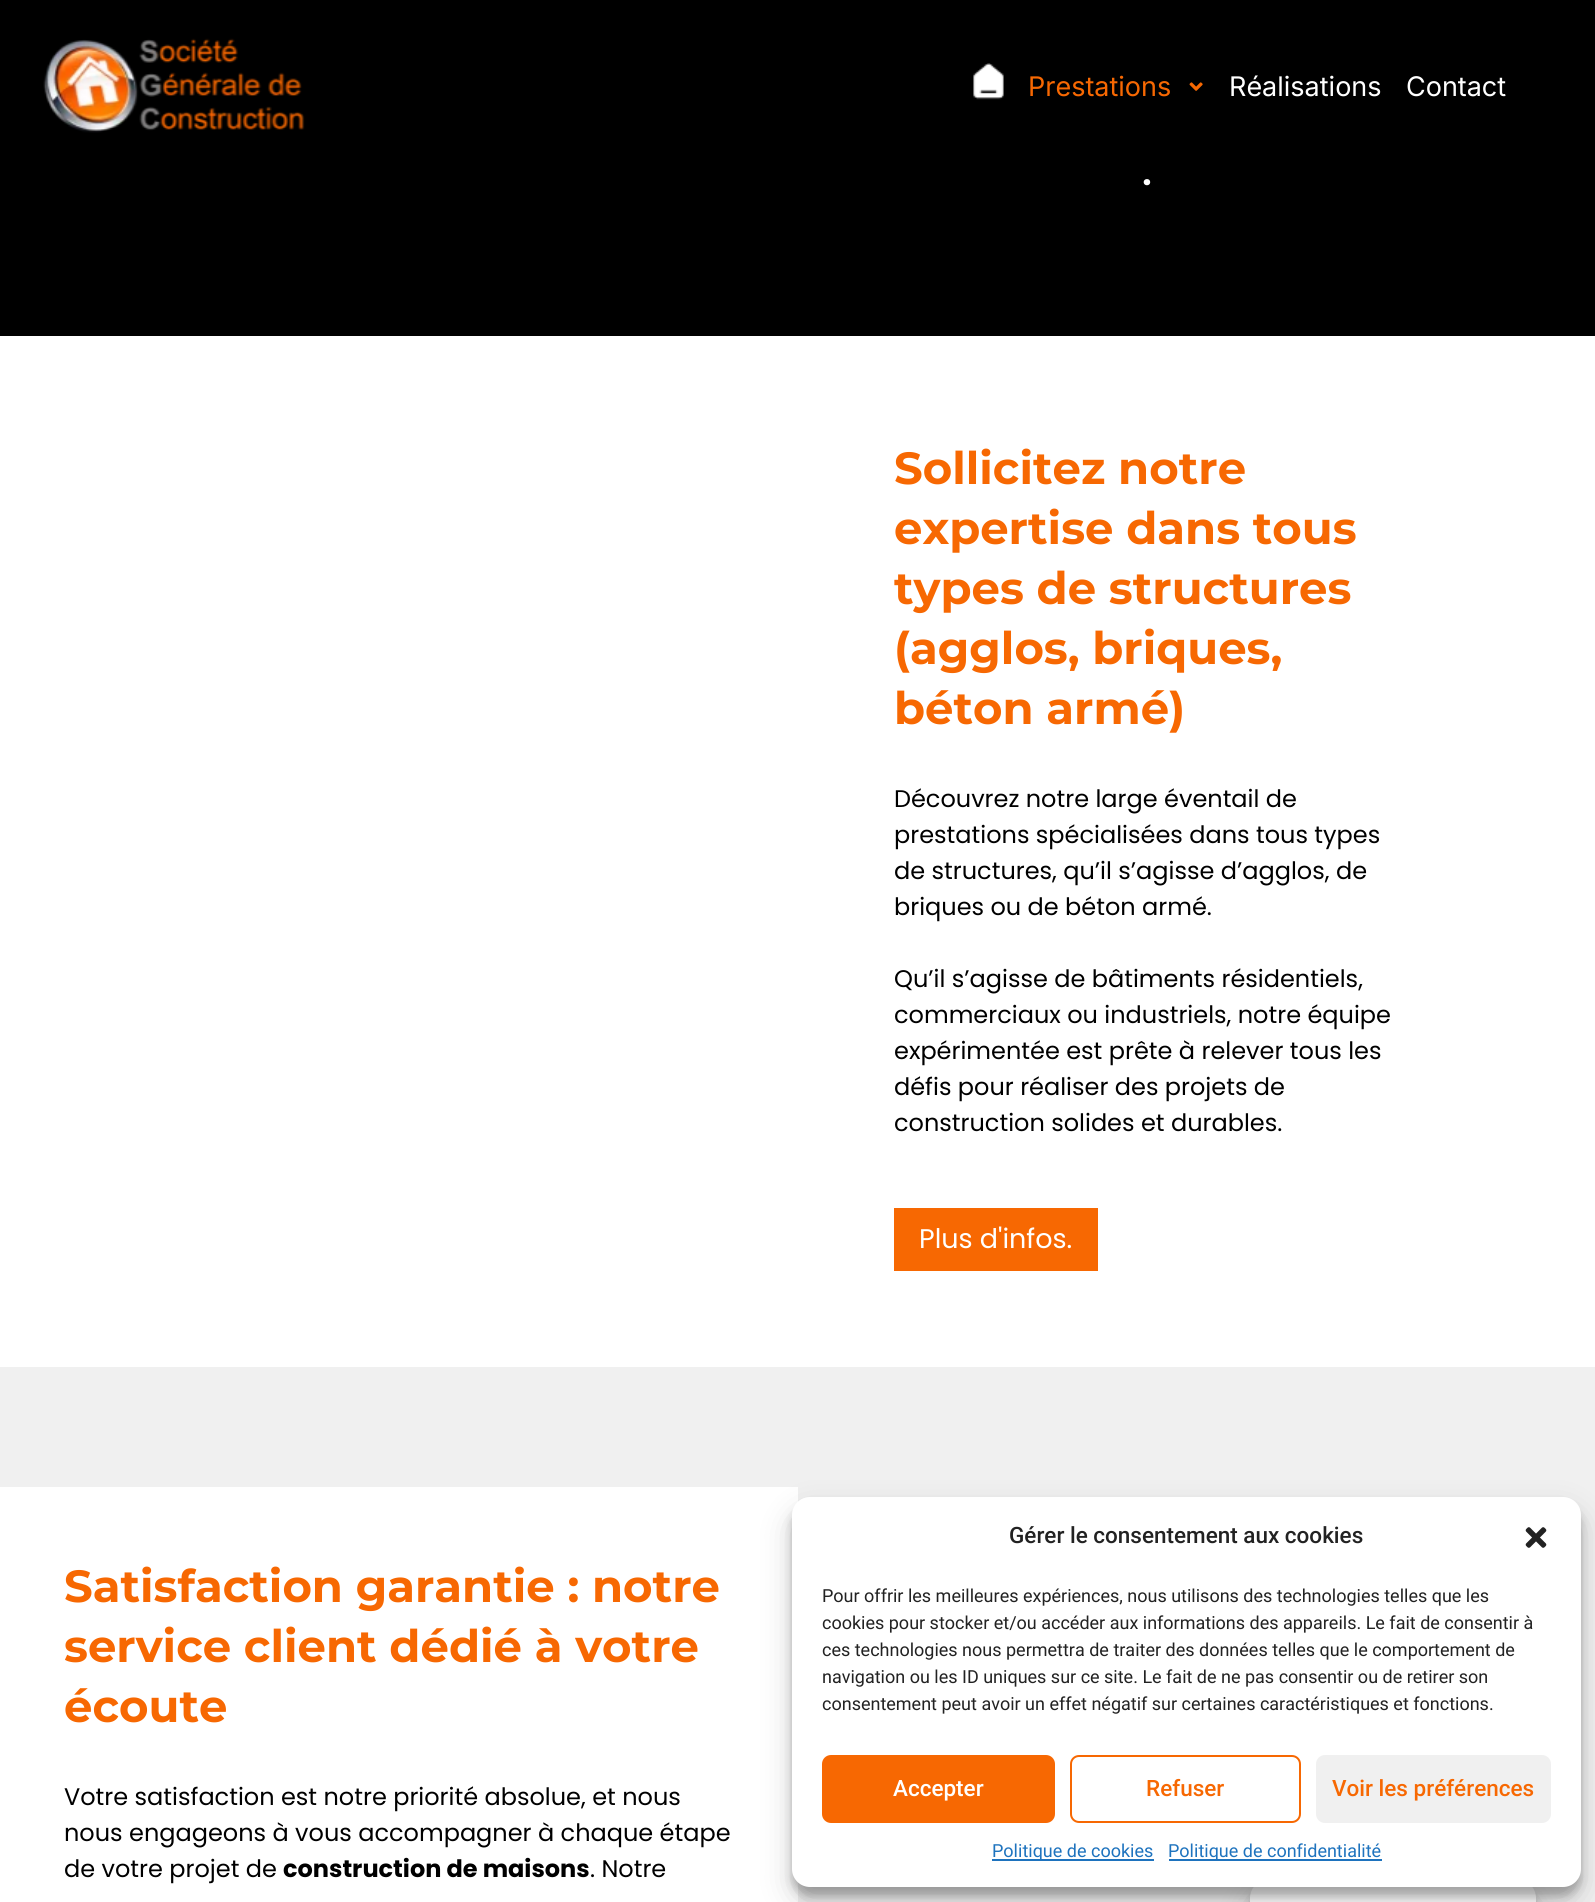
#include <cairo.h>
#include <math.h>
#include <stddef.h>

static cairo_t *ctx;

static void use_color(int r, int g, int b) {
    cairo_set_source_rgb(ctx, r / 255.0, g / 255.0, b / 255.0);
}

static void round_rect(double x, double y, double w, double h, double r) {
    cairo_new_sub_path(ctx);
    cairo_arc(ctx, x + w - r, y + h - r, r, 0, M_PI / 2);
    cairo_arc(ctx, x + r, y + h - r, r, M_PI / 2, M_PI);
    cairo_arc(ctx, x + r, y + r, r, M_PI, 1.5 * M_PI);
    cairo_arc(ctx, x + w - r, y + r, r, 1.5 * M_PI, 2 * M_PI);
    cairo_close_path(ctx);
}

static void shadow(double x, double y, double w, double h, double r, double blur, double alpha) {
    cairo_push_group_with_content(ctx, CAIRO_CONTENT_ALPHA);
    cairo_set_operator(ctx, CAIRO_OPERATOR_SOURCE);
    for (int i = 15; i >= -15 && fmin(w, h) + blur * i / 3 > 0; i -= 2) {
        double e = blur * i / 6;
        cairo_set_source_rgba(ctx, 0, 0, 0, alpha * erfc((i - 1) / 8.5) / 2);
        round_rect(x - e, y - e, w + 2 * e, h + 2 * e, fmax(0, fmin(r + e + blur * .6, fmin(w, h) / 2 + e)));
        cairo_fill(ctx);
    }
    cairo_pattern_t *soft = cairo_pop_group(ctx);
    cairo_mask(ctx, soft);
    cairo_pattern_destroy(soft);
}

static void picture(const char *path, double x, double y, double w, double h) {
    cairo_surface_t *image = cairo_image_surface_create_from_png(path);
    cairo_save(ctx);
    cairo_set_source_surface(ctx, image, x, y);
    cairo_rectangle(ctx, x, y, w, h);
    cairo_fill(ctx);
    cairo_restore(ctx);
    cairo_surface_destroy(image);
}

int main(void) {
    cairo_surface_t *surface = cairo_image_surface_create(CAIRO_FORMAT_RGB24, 1595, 1902);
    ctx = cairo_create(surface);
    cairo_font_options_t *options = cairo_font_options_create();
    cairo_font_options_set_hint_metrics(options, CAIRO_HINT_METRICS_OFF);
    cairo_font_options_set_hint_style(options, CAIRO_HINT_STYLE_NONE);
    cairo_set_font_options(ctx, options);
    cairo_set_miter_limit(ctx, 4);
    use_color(255, 255, 255);
    cairo_paint(ctx);
    use_color(0, 0, 0);
    cairo_rectangle(ctx, 0, 174, 1595, 162);
    cairo_fill(ctx);
    use_color(0, 0, 0);
    shadow(0, 8, 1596, 174, 0, 7.5, 0.13);
    use_color(0, 0, 0);
    cairo_rectangle(ctx, 0, 0, 1595, 174);
    cairo_fill(ctx);
    picture("img1.png", 43, 38, 262, 95);
    picture("img2.png", 973, 63, 31, 37);
    cairo_select_font_face(ctx, "Inter", CAIRO_FONT_SLANT_NORMAL, CAIRO_FONT_WEIGHT_NORMAL);
    cairo_set_font_size(ctx, 27);
    use_color(247, 104, 2);
    cairo_move_to(ctx, 1028, 96);
    cairo_show_text(ctx, "Prestations");
    picture("img3.png", 1189, 82, 14, 9);
    use_color(255, 255, 255);
    cairo_move_to(ctx, 1229, 96);
    cairo_show_text(ctx, "Réalisations");
    cairo_move_to(ctx, 1406, 96);
    cairo_show_text(ctx, "Contact");
    cairo_select_font_face(ctx, "Poppins SemiBold", CAIRO_FONT_SLANT_NORMAL, CAIRO_FONT_WEIGHT_NORMAL);
    cairo_set_font_size(ctx, 38);
    cairo_move_to(ctx, 1142, 185);
    cairo_show_text(ctx, ".");
    cairo_select_font_face(ctx, "Montserrat", CAIRO_FONT_SLANT_NORMAL, CAIRO_FONT_WEIGHT_BOLD);
    cairo_set_font_size(ctx, 45);
    use_color(247, 104, 2);
    cairo_move_to(ctx, 894, 484);
    cairo_show_text(ctx, "Sollicitez notre");
    cairo_move_to(ctx, 894, 544);
    cairo_show_text(ctx, "expertise dans tous");
    cairo_move_to(ctx, 894, 604);
    cairo_show_text(ctx, "types de structures");
    cairo_move_to(ctx, 894, 664);
    cairo_show_text(ctx, "(agglos, briques,");
    cairo_move_to(ctx, 894, 724);
    cairo_show_text(ctx, "béton armé)");
    cairo_select_font_face(ctx, "Poppins", CAIRO_FONT_SLANT_NORMAL, CAIRO_FONT_WEIGHT_NORMAL);
    cairo_set_font_size(ctx, 24);
    use_color(0, 0, 0);
    cairo_move_to(ctx, 894, 807);
    cairo_show_text(ctx, "Découvrez notre large éventail de");
    cairo_move_to(ctx, 894, 843);
    cairo_show_text(ctx, "prestations spécialisées dans tous types");
    cairo_move_to(ctx, 894, 879);
    cairo_show_text(ctx, "de structures, qu’il s’agisse d’agglos, de");
    cairo_move_to(ctx, 894, 915);
    cairo_show_text(ctx, "briques ou de béton armé.");
    cairo_move_to(ctx, 894, 987);
    cairo_show_text(ctx, "Qu’il s’agisse de bâtiments résidentiels,");
    cairo_move_to(ctx, 894, 1023);
    cairo_show_text(ctx, "commerciaux ou industriels, notre équipe");
    cairo_move_to(ctx, 894, 1059);
    cairo_show_text(ctx, "expérimentée est prête à relever tous les");
    cairo_move_to(ctx, 894, 1095);
    cairo_show_text(ctx, "défis pour réaliser des projets de");
    cairo_move_to(ctx, 894, 1131);
    cairo_show_text(ctx, "construction solides et durables.");
    use_color(247, 104, 2);
    cairo_rectangle(ctx, 894, 1208, 204, 63);
    cairo_fill(ctx);
    cairo_set_font_size(ctx, 27);
    use_color(255, 255, 255);
    cairo_move_to(ctx, 919, 1248);
    cairo_show_text(ctx, "Plus d'infos.");
    use_color(240, 240, 240);
    cairo_rectangle(ctx, 0, 1367, 1595, 535);
    cairo_fill(ctx);
    use_color(255, 255, 255);
    cairo_rectangle(ctx, 0, 1487, 798, 415);
    cairo_fill(ctx);
    cairo_select_font_face(ctx, "Montserrat", CAIRO_FONT_SLANT_NORMAL, CAIRO_FONT_WEIGHT_BOLD);
    cairo_set_font_size(ctx, 45);
    use_color(247, 104, 2);
    cairo_move_to(ctx, 64, 1602);
    cairo_show_text(ctx, "Satisfaction garantie : notre");
    cairo_move_to(ctx, 64, 1662);
    cairo_show_text(ctx, "service client dédié à votre");
    cairo_move_to(ctx, 64, 1722);
    cairo_show_text(ctx, "écoute");
    cairo_select_font_face(ctx, "Poppins", CAIRO_FONT_SLANT_NORMAL, CAIRO_FONT_WEIGHT_NORMAL);
    cairo_set_font_size(ctx, 24);
    use_color(0, 0, 0);
    cairo_move_to(ctx, 64, 1805);
    cairo_show_text(ctx, "Votre satisfaction est notre priorité absolue, et nous");
    cairo_move_to(ctx, 64, 1841);
    cairo_show_text(ctx, "nous engageons à vous accompagner à chaque étape");
    cairo_move_to(ctx, 64, 1877);
    cairo_show_text(ctx, "de votre projet de");
    cairo_select_font_face(ctx, "Poppins", CAIRO_FONT_SLANT_NORMAL, CAIRO_FONT_WEIGHT_BOLD);
    cairo_move_to(ctx, 283, 1877);
    cairo_show_text(ctx, "construction de maisons");
    cairo_select_font_face(ctx, "Poppins", CAIRO_FONT_SLANT_NORMAL, CAIRO_FONT_WEIGHT_NORMAL);
    cairo_move_to(ctx, 590, 1877);
    cairo_show_text(ctx, ". Notre");
    use_color(0, 0, 0);
    shadow(1250, 1889, 286, 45, 18, 4.5, 0.23);
    shadow(1250, 1895, 286, 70, 18, 15, 0.19);
    use_color(255, 255, 255);
    cairo_new_path(ctx);
    cairo_move_to(ctx, 1268, 1880);
    cairo_line_to(ctx, 1518, 1880);
    cairo_curve_to(ctx, 1528, 1880, 1536, 1888, 1536, 1898);
    cairo_line_to(ctx, 1536, 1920);
    cairo_line_to(ctx, 1250, 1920);
    cairo_line_to(ctx, 1250, 1898);
    cairo_curve_to(ctx, 1250, 1888, 1258, 1880, 1268, 1880);
    cairo_close_path(ctx);
    cairo_fill(ctx);
    use_color(0, 0, 0);
    shadow(792, 1506, 789, 390, 18, 4.5, 0.23);
    shadow(792, 1512, 789, 390, 18, 15, 0.19);
    use_color(255, 255, 255);
    round_rect(792, 1497, 789, 390, 18);
    cairo_fill(ctx);
    cairo_select_font_face(ctx, "Roboto Medium", CAIRO_FONT_SLANT_NORMAL, CAIRO_FONT_WEIGHT_NORMAL);
    cairo_set_font_size(ctx, 22.5);
    use_color(34, 34, 34);
    cairo_move_to(ctx, 1009, 1543);
    cairo_show_text(ctx, "Gérer le consentement aux cookies");
    picture("img4.png", 1525, 1527, 22, 21);
    cairo_select_font_face(ctx, "Roboto", CAIRO_FONT_SLANT_NORMAL, CAIRO_FONT_WEIGHT_NORMAL);
    cairo_set_font_size(ctx, 18);
    cairo_move_to(ctx, 822, 1602);
    cairo_show_text(ctx, "Pour offrir les meilleures expériences, nous utilisons des technologies telles que les");
    cairo_move_to(ctx, 822, 1629);
    cairo_show_text(ctx, "cookies pour stocker et/ou accéder aux informations des appareils. Le fait de consentir à");
    cairo_move_to(ctx, 822, 1656);
    cairo_show_text(ctx, "ces technologies nous permettra de traiter des données telles que le comportement de");
    cairo_move_to(ctx, 822, 1683);
    cairo_show_text(ctx, "navigation ou les ID uniques sur ce site. Le fait de ne pas consentir ou de retirer son");
    cairo_move_to(ctx, 822, 1710);
    cairo_show_text(ctx, "consentement peut avoir un effet négatif sur certaines caractéristiques et fonctions.");
    use_color(247, 104, 2);
    round_rect(823, 1756, 231, 66, 8);
    cairo_fill_preserve(ctx);
    cairo_stroke(ctx);
    cairo_select_font_face(ctx, "Roboto Medium", CAIRO_FONT_SLANT_NORMAL, CAIRO_FONT_WEIGHT_NORMAL);
    cairo_set_font_size(ctx, 22.5);
    use_color(255, 255, 255);
    cairo_move_to(ctx, 893, 1796);
    cairo_show_text(ctx, "Accepter");
    round_rect(1071, 1756, 229, 66, 8);
    use_color(247, 104, 2);
    cairo_stroke(ctx);
    cairo_move_to(ctx, 1146, 1796);
    cairo_show_text(ctx, "Refuser");
    use_color(240, 240, 240);
    round_rect(1317, 1756, 233, 66, 8);
    cairo_fill_preserve(ctx);
    cairo_stroke(ctx);
    use_color(247, 104, 2);
    cairo_move_to(ctx, 1332, 1796);
    cairo_show_text(ctx, "Voir les préférences");
    use_color(30, 115, 190);
    cairo_rectangle(ctx, 992, 1859, 162, 2);
    cairo_fill(ctx);
    cairo_select_font_face(ctx, "Roboto", CAIRO_FONT_SLANT_NORMAL, CAIRO_FONT_WEIGHT_NORMAL);
    cairo_set_font_size(ctx, 18);
    cairo_move_to(ctx, 992, 1857);
    cairo_show_text(ctx, "Politique de cookies");
    cairo_rectangle(ctx, 1169, 1859, 213, 2);
    cairo_fill(ctx);
    cairo_move_to(ctx, 1168, 1857);
    cairo_show_text(ctx, "Politique de confidentialité");
    cairo_surface_write_to_png(surface, "result.png");
    cairo_font_options_destroy(options);
    cairo_destroy(ctx);
    cairo_surface_destroy(surface);
    return 0;
}
